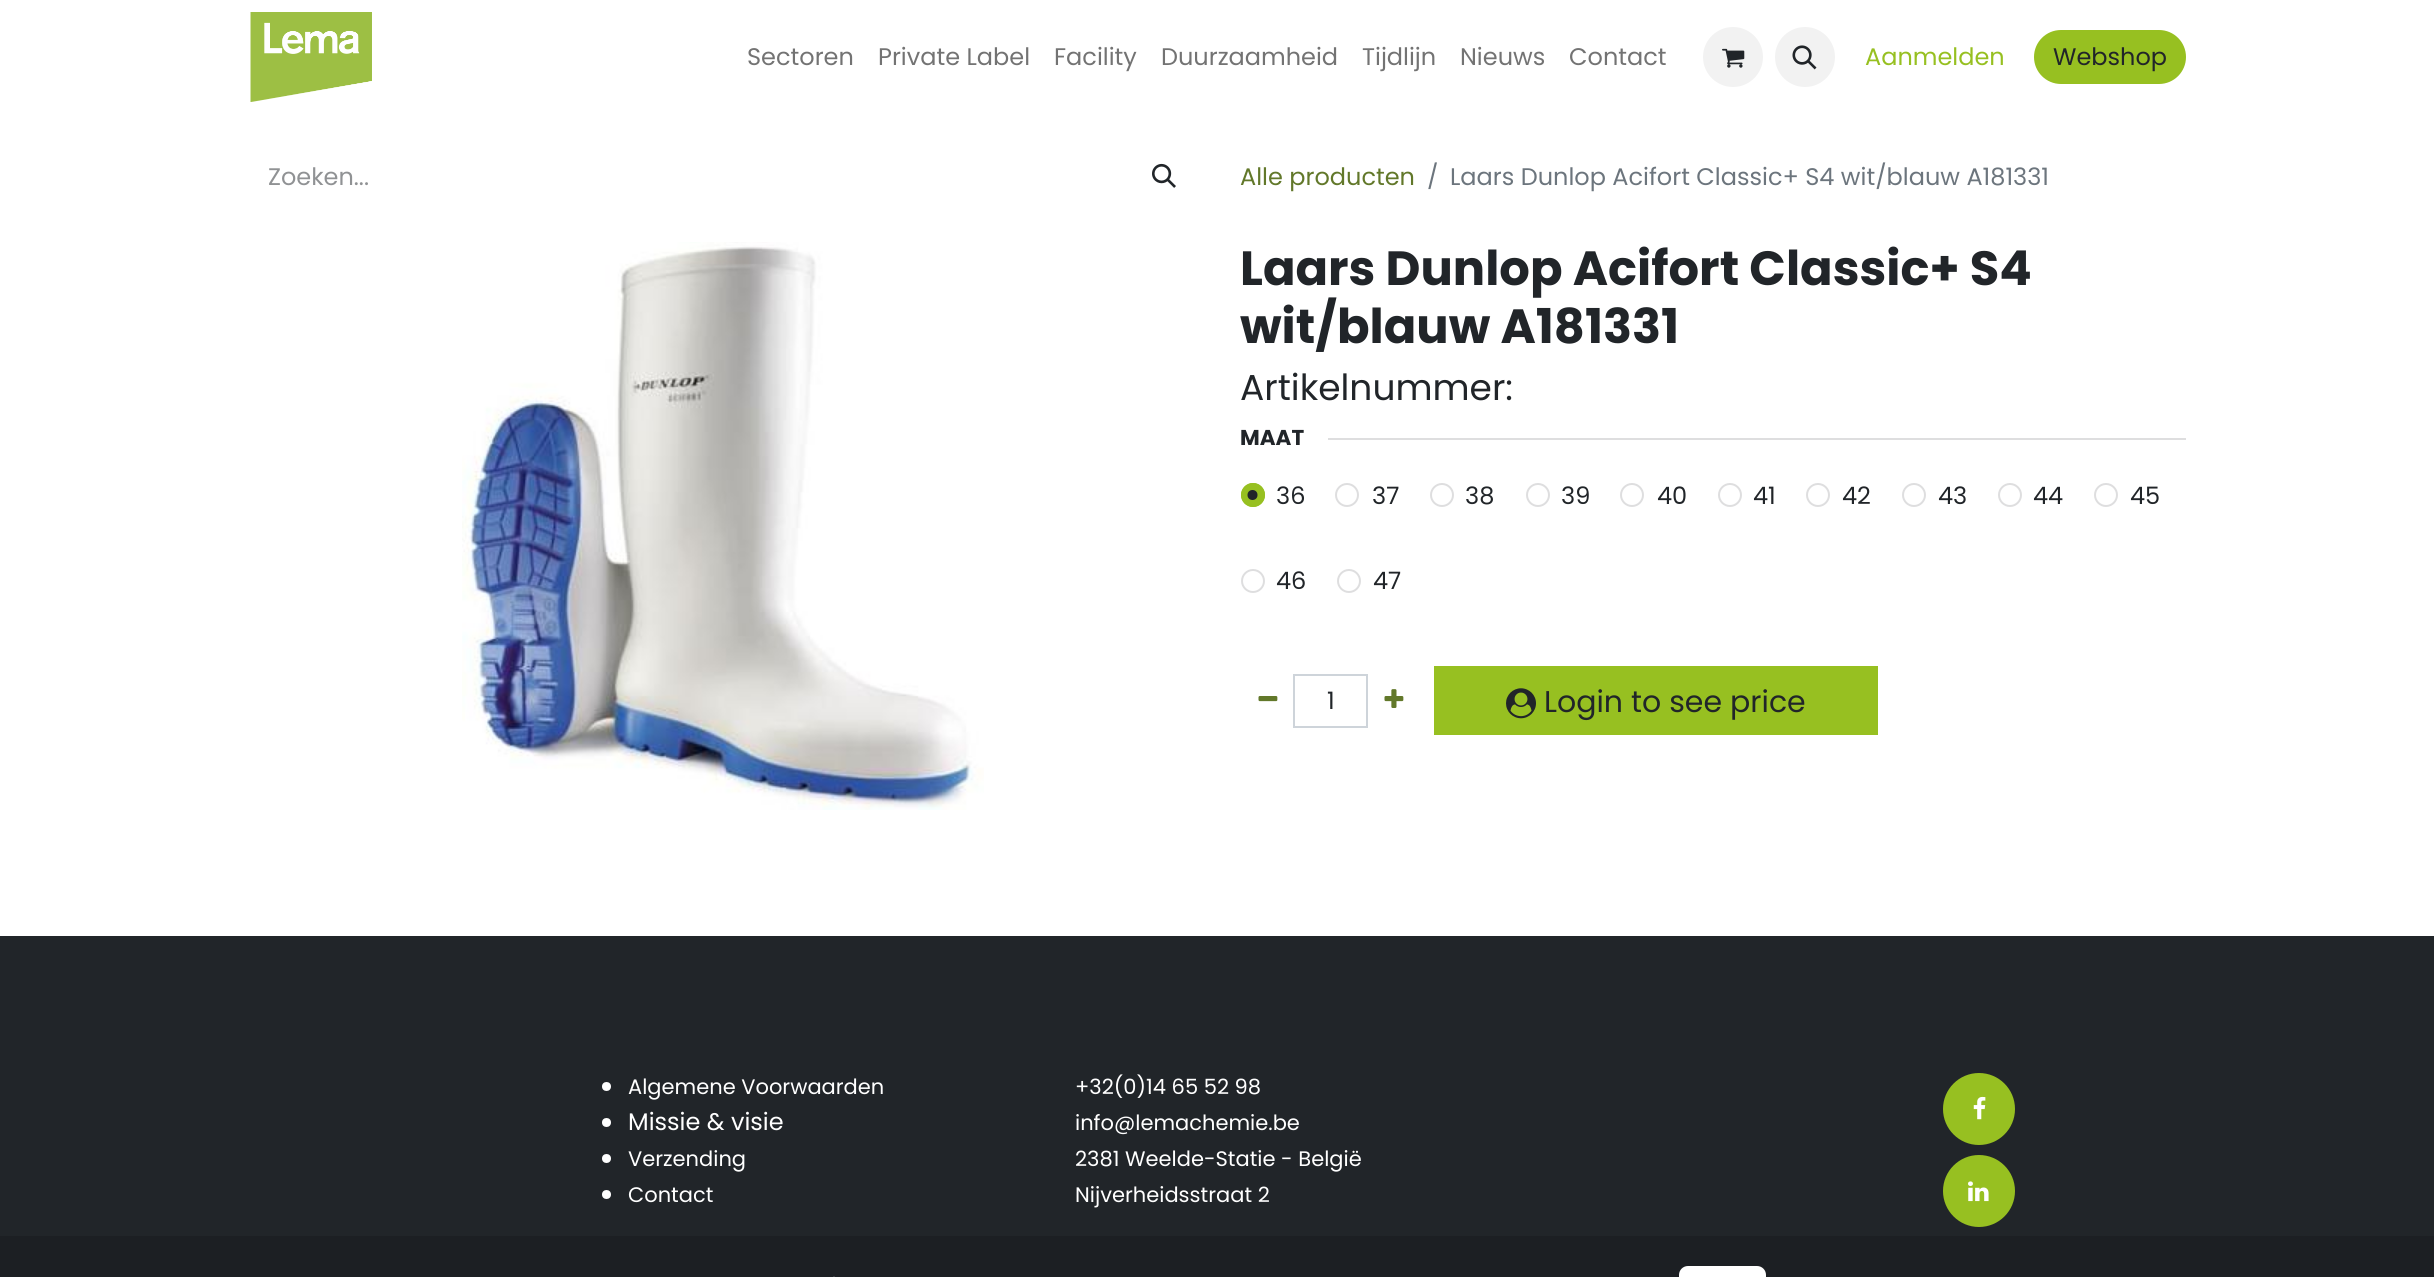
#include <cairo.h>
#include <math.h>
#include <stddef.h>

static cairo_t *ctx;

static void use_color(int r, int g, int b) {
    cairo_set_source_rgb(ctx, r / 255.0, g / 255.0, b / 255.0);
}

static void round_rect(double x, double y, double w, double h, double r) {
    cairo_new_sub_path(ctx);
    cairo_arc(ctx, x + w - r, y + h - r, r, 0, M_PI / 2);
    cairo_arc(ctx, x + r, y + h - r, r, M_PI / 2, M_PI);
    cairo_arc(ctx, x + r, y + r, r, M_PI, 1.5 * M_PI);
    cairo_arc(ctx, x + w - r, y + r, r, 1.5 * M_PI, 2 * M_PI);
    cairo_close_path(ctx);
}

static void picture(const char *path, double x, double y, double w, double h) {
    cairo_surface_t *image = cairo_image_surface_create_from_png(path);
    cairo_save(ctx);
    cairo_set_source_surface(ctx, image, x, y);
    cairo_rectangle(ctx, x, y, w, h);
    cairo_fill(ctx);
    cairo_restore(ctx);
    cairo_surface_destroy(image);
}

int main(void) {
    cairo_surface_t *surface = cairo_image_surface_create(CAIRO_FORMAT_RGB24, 2434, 1277);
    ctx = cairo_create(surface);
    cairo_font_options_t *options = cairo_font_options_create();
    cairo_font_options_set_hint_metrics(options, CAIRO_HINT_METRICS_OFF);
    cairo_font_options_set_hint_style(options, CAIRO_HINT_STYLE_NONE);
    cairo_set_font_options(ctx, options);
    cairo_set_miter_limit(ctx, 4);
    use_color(255, 255, 255);
    cairo_paint(ctx);
    picture("img1.png", 250, 12, 122, 90);
    cairo_select_font_face(ctx, "Poppins", CAIRO_FONT_SLANT_NORMAL, CAIRO_FONT_WEIGHT_NORMAL);
    cairo_set_font_size(ctx, 24);
    use_color(115, 115, 115);
    cairo_move_to(ctx, 747, 65);
    cairo_show_text(ctx, "Sectoren");
    cairo_move_to(ctx, 878, 65);
    cairo_show_text(ctx, "Private Label");
    cairo_move_to(ctx, 1054, 65);
    cairo_show_text(ctx, "Facility");
    cairo_move_to(ctx, 1161, 65);
    cairo_show_text(ctx, "Duurzaamheid");
    cairo_move_to(ctx, 1362, 65);
    cairo_show_text(ctx, "Tijdlijn");
    cairo_move_to(ctx, 1460, 65);
    cairo_show_text(ctx, "Nieuws");
    cairo_move_to(ctx, 1569, 65);
    cairo_show_text(ctx, "Contact");
    use_color(242, 242, 242);
    cairo_new_path(ctx);
    cairo_arc(ctx, 1733, 57, 30, 0, 2 * M_PI);
    cairo_fill(ctx);
    picture("img2.png", 1722, 48, 23, 20);
    cairo_arc(ctx, 1805, 57, 30, 0, 2 * M_PI);
    cairo_fill(ctx);
    picture("img3.png", 1792, 45, 25, 25);
    use_color(151, 192, 33);
    cairo_move_to(ctx, 1865, 65);
    cairo_show_text(ctx, "Aanmelden");
    round_rect(2034, 30, 152, 54, 27);
    cairo_fill(ctx);
    use_color(33, 37, 41);
    cairo_move_to(ctx, 2053, 65);
    cairo_show_text(ctx, "Webshop");
    use_color(144, 146, 148);
    cairo_move_to(ctx, 268, 185);
    cairo_show_text(ctx, "Zoeken...");
    picture("img4.png", 1152, 163, 24, 25);
    use_color(98, 120, 42);
    cairo_move_to(ctx, 1240, 185);
    cairo_show_text(ctx, "Alle producten");
    use_color(108, 117, 125);
    cairo_move_to(ctx, 1427, 185);
    cairo_show_text(ctx, "/");
    cairo_move_to(ctx, 1450, 185);
    cairo_show_text(ctx, "Laars Dunlop Acifort Classic+ S4 wit/blauw A181331");
    picture("img5.png", 462, 242, 522, 568);
    cairo_select_font_face(ctx, "Poppins", CAIRO_FONT_SLANT_NORMAL, CAIRO_FONT_WEIGHT_BOLD);
    cairo_set_font_size(ctx, 48);
    use_color(33, 37, 41);
    cairo_move_to(ctx, 1240, 285);
    cairo_show_text(ctx, "Laars Dunlop Acifort Classic+ S4");
    cairo_move_to(ctx, 1240, 343);
    cairo_show_text(ctx, "wit/blauw A181331");
    cairo_select_font_face(ctx, "Poppins", CAIRO_FONT_SLANT_NORMAL, CAIRO_FONT_WEIGHT_NORMAL);
    cairo_set_font_size(ctx, 36);
    cairo_move_to(ctx, 1240, 400);
    cairo_show_text(ctx, "Artikelnummer:");
    cairo_select_font_face(ctx, "Poppins", CAIRO_FONT_SLANT_NORMAL, CAIRO_FONT_WEIGHT_BOLD);
    cairo_set_font_size(ctx, 21.5);
    cairo_move_to(ctx, 1240, 445);
    cairo_show_text(ctx, "MAAT");
    use_color(222, 222, 223);
    cairo_rectangle(ctx, 1328, 438, 858, 2);
    cairo_fill(ctx);
    use_color(151, 192, 33);
    cairo_arc(ctx, 1253, 495, 12, 0, 2 * M_PI);
    cairo_fill(ctx);
    use_color(33, 37, 41);
    cairo_arc(ctx, 1252.5, 495, 5, 0, 2 * M_PI);
    cairo_fill(ctx);
    cairo_arc(ctx, 1253, 495, 11, 0, 2 * M_PI);
    use_color(151, 192, 33);
    cairo_stroke(ctx);
    cairo_select_font_face(ctx, "Poppins", CAIRO_FONT_SLANT_NORMAL, CAIRO_FONT_WEIGHT_NORMAL);
    cairo_set_font_size(ctx, 24);
    use_color(33, 37, 41);
    cairo_move_to(ctx, 1276, 504);
    cairo_show_text(ctx, "36");
    cairo_new_path(ctx);
    cairo_arc(ctx, 1347, 495, 11, 0, 2 * M_PI);
    use_color(222, 222, 223);
    cairo_stroke(ctx);
    use_color(33, 37, 41);
    cairo_move_to(ctx, 1372, 504);
    cairo_show_text(ctx, "37");
    cairo_new_path(ctx);
    cairo_arc(ctx, 1442, 495, 11, 0, 2 * M_PI);
    use_color(222, 222, 223);
    cairo_stroke(ctx);
    use_color(33, 37, 41);
    cairo_move_to(ctx, 1465, 504);
    cairo_show_text(ctx, "38");
    cairo_new_path(ctx);
    cairo_arc(ctx, 1538, 495, 11, 0, 2 * M_PI);
    use_color(222, 222, 223);
    cairo_stroke(ctx);
    use_color(33, 37, 41);
    cairo_move_to(ctx, 1561, 504);
    cairo_show_text(ctx, "39");
    cairo_new_path(ctx);
    cairo_arc(ctx, 1632, 495, 11, 0, 2 * M_PI);
    use_color(222, 222, 223);
    cairo_stroke(ctx);
    use_color(33, 37, 41);
    cairo_move_to(ctx, 1657, 504);
    cairo_show_text(ctx, "40");
    cairo_new_path(ctx);
    cairo_arc(ctx, 1730, 495, 11, 0, 2 * M_PI);
    use_color(222, 222, 223);
    cairo_stroke(ctx);
    use_color(33, 37, 41);
    cairo_move_to(ctx, 1753, 504);
    cairo_show_text(ctx, "41");
    cairo_new_path(ctx);
    cairo_arc(ctx, 1818, 495, 11, 0, 2 * M_PI);
    use_color(222, 222, 223);
    cairo_stroke(ctx);
    use_color(33, 37, 41);
    cairo_move_to(ctx, 1842, 504);
    cairo_show_text(ctx, "42");
    cairo_new_path(ctx);
    cairo_arc(ctx, 1914, 495, 11, 0, 2 * M_PI);
    use_color(222, 222, 223);
    cairo_stroke(ctx);
    use_color(33, 37, 41);
    cairo_move_to(ctx, 1938, 504);
    cairo_show_text(ctx, "43");
    cairo_new_path(ctx);
    cairo_arc(ctx, 2010, 495, 11, 0, 2 * M_PI);
    use_color(222, 222, 223);
    cairo_stroke(ctx);
    use_color(33, 37, 41);
    cairo_move_to(ctx, 2033, 504);
    cairo_show_text(ctx, "44");
    cairo_new_path(ctx);
    cairo_arc(ctx, 2106, 495, 11, 0, 2 * M_PI);
    use_color(222, 222, 223);
    cairo_stroke(ctx);
    use_color(33, 37, 41);
    cairo_move_to(ctx, 2130, 504);
    cairo_show_text(ctx, "45");
    cairo_new_path(ctx);
    cairo_arc(ctx, 1253, 581, 11, 0, 2 * M_PI);
    use_color(222, 222, 223);
    cairo_stroke(ctx);
    use_color(33, 37, 41);
    cairo_move_to(ctx, 1276, 589);
    cairo_show_text(ctx, "46");
    cairo_new_path(ctx);
    cairo_arc(ctx, 1349, 581, 11, 0, 2 * M_PI);
    use_color(222, 222, 223);
    cairo_stroke(ctx);
    use_color(33, 37, 41);
    cairo_move_to(ctx, 1373, 589);
    cairo_show_text(ctx, "47");
    picture("img6.png", 1258, 696, 20, 6);
    cairo_rectangle(ctx, 1294, 675, 73, 52);
    use_color(206, 212, 218);
    cairo_stroke(ctx);
    use_color(33, 37, 41);
    cairo_move_to(ctx, 1327, 709);
    cairo_show_text(ctx, "1");
    picture("img7.png", 1384, 689, 20, 19);
    use_color(151, 192, 33);
    cairo_rectangle(ctx, 1434, 666, 444, 69);
    cairo_fill(ctx);
    picture("img8.png", 1506, 688, 30, 31);
    cairo_set_font_size(ctx, 30);
    use_color(33, 37, 41);
    cairo_move_to(ctx, 1544, 712);
    cairo_show_text(ctx, "Login to see price");
    cairo_rectangle(ctx, 0, 936, 2434, 300);
    cairo_fill(ctx);
    use_color(255, 255, 255);
    cairo_arc(ctx, 606.5, 1086.5, 4.5, 0, 2 * M_PI);
    cairo_fill(ctx);
    cairo_set_font_size(ctx, 21);
    cairo_move_to(ctx, 628, 1094);
    cairo_show_text(ctx, "Algemene Voorwaarden");
    cairo_new_path(ctx);
    cairo_arc(ctx, 606.5, 1122.5, 4.5, 0, 2 * M_PI);
    cairo_fill(ctx);
    cairo_set_font_size(ctx, 24);
    cairo_move_to(ctx, 628, 1130);
    cairo_show_text(ctx, "Missie & visie");
    cairo_new_path(ctx);
    cairo_arc(ctx, 606.5, 1158.5, 4.5, 0, 2 * M_PI);
    cairo_fill(ctx);
    cairo_set_font_size(ctx, 21);
    cairo_move_to(ctx, 628, 1166);
    cairo_show_text(ctx, "Verzending");
    cairo_new_path(ctx);
    cairo_arc(ctx, 606.5, 1194.5, 4.5, 0, 2 * M_PI);
    cairo_fill(ctx);
    cairo_move_to(ctx, 628, 1202);
    cairo_show_text(ctx, "Contact");
    cairo_move_to(ctx, 1075, 1094);
    cairo_show_text(ctx, "+32(0)14 65 52 98");
    cairo_move_to(ctx, 1075, 1130);
    cairo_show_text(ctx, "info@lemachemie.be");
    cairo_move_to(ctx, 1075, 1166);
    cairo_show_text(ctx, "2381 Weelde-Statie - België");
    cairo_move_to(ctx, 1075, 1202);
    cairo_show_text(ctx, "Nijverheidsstraat 2");
    use_color(151, 192, 33);
    cairo_new_path(ctx);
    cairo_arc(ctx, 1979, 1109, 36, 0, 2 * M_PI);
    cairo_fill(ctx);
    picture("img9.png", 1973, 1096, 13, 24);
    cairo_arc(ctx, 1979, 1191, 36, 0, 2 * M_PI);
    cairo_fill(ctx);
    picture("img10.png", 1968, 1181, 21, 21);
    use_color(28, 31, 35);
    cairo_rectangle(ctx, 0, 1236, 2434, 41);
    cairo_fill(ctx);
    use_color(255, 255, 255);
    cairo_new_path(ctx);
    cairo_move_to(ctx, 838.5, 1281);
    cairo_line_to(ctx, 829.5, 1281);
    cairo_line_to(ctx, 834, 1276.5);
    cairo_close_path(ctx);
    cairo_fill(ctx);
    cairo_new_path(ctx);
    cairo_move_to(ctx, 1688, 1266);
    cairo_line_to(ctx, 1757, 1266);
    cairo_curve_to(ctx, 1762, 1266, 1766, 1270, 1766, 1275);
    cairo_line_to(ctx, 1766, 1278);
    cairo_line_to(ctx, 1679, 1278);
    cairo_line_to(ctx, 1679, 1275);
    cairo_curve_to(ctx, 1679, 1270, 1683, 1266, 1688, 1266);
    cairo_close_path(ctx);
    cairo_fill(ctx);
    cairo_surface_write_to_png(surface, "result.png");
    cairo_font_options_destroy(options);
    cairo_destroy(ctx);
    cairo_surface_destroy(surface);
    return 0;
}
